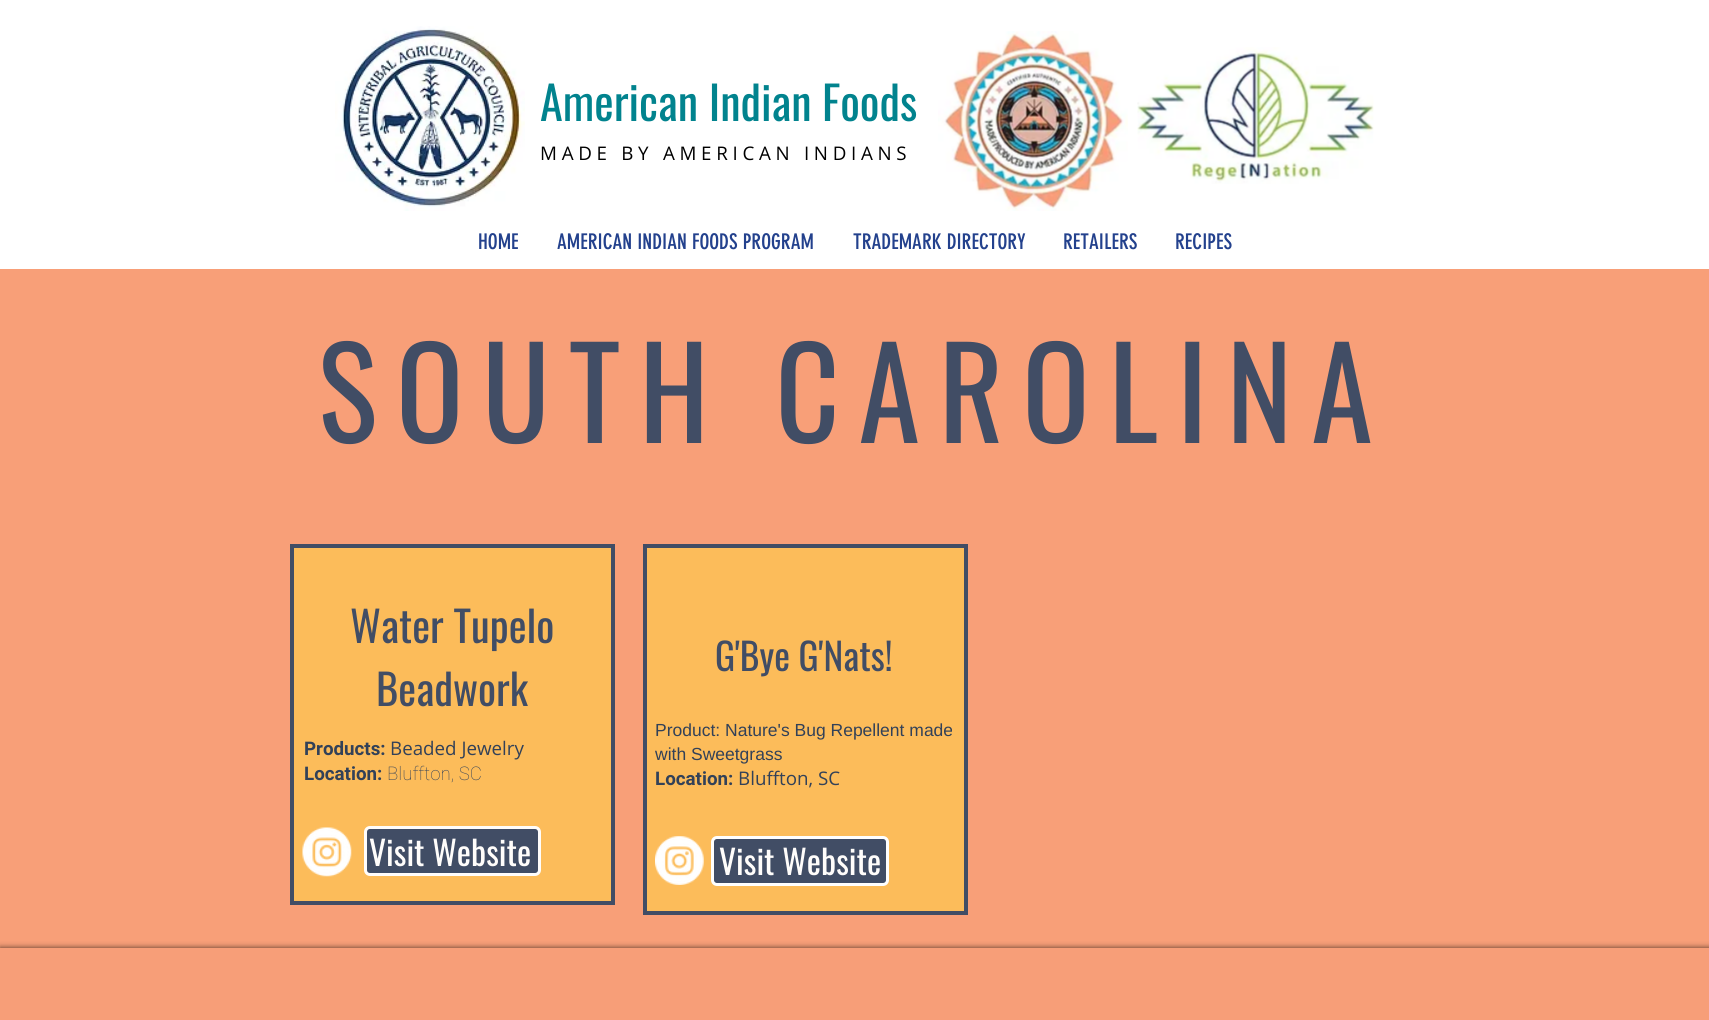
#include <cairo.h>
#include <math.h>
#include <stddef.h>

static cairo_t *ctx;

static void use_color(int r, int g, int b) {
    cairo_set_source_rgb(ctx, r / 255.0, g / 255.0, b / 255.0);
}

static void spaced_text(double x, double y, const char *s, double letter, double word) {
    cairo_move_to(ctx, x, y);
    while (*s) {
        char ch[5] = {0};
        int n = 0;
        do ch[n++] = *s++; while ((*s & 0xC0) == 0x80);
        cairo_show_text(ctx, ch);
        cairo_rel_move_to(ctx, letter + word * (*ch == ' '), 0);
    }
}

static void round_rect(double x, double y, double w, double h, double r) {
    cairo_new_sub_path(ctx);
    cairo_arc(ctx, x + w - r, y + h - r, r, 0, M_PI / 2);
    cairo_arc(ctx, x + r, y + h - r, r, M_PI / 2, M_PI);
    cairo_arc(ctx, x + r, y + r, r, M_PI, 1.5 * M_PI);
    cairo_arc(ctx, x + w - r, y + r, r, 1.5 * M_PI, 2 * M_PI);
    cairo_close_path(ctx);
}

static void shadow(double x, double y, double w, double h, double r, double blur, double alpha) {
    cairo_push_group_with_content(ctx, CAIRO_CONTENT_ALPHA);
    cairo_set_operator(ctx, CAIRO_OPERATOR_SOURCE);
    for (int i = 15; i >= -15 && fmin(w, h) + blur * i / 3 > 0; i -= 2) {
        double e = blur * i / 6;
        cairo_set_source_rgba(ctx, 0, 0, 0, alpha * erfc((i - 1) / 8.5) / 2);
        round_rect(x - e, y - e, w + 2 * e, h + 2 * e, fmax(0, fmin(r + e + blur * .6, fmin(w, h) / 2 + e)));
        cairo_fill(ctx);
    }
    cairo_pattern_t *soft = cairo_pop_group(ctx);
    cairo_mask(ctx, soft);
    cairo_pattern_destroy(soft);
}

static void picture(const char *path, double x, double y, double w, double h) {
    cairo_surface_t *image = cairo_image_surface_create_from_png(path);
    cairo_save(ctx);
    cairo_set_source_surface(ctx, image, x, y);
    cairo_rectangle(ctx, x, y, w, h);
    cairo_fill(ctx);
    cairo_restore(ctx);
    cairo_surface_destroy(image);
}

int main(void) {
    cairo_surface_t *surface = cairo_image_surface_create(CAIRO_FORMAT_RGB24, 1709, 1020);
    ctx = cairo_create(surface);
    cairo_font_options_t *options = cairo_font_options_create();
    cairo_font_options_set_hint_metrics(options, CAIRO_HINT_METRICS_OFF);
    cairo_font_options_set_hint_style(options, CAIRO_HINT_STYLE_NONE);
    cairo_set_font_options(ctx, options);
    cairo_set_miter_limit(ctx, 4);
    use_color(248, 159, 120);
    cairo_paint(ctx);
    use_color(255, 255, 255);
    cairo_rectangle(ctx, 0, 0, 1709, 269);
    cairo_fill(ctx);
    picture("img1.png", 335, 26, 190, 185);
    cairo_select_font_face(ctx, "Oswald", CAIRO_FONT_SLANT_NORMAL, CAIRO_FONT_WEIGHT_NORMAL);
    cairo_set_font_size(ctx, 46.25);
    use_color(1, 131, 142);
    cairo_move_to(ctx, 540, 121);
    cairo_show_text(ctx, "American Indian Foods");
    picture("img2.png", 938, 31, 190, 180);
    picture("img3.png", 1137, 47, 237, 137);
    cairo_select_font_face(ctx, "Open Sans", CAIRO_FONT_SLANT_NORMAL, CAIRO_FONT_WEIGHT_NORMAL);
    cairo_set_font_size(ctx, 18.75);
    use_color(0, 0, 0);
    spaced_text(540, 160, "MADE BY AMERICAN INDIANS", 4.7, 0);
    cairo_select_font_face(ctx, "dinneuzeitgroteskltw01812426", CAIRO_FONT_SLANT_NORMAL, CAIRO_FONT_WEIGHT_NORMAL);
    cairo_set_font_size(ctx, 21.25);
    use_color(35, 65, 141);
    cairo_move_to(ctx, 478, 249);
    cairo_show_text(ctx, "HOME");
    cairo_move_to(ctx, 557, 249);
    cairo_show_text(ctx, "AMERICAN INDIAN FOODS PROGRAM");
    cairo_move_to(ctx, 853, 249);
    cairo_show_text(ctx, "TRADEMARK DIRECTORY");
    cairo_move_to(ctx, 1063, 249);
    cairo_show_text(ctx, "RETAILERS");
    cairo_move_to(ctx, 1175, 249);
    cairo_show_text(ctx, "RECIPES");
    cairo_select_font_face(ctx, "Oswald", CAIRO_FONT_SLANT_NORMAL, CAIRO_FONT_WEIGHT_NORMAL);
    cairo_set_font_size(ctx, 125);
    use_color(65, 77, 101);
    spaced_text(318, 443, "SOUTH CAROLINA", 18.75, 0);
    use_color(252, 188, 90);
    cairo_rectangle(ctx, 292, 546, 321, 357);
    cairo_fill_preserve(ctx);
    use_color(65, 77, 101);
    cairo_set_line_width(ctx, 4);
    cairo_stroke(ctx);
    cairo_set_font_size(ctx, 42.5);
    cairo_move_to(ctx, 350, 643);
    cairo_show_text(ctx, "Water Tupelo");
    cairo_move_to(ctx, 376, 706);
    cairo_show_text(ctx, "Beadwork");
    cairo_select_font_face(ctx, "Roboto", CAIRO_FONT_SLANT_NORMAL, CAIRO_FONT_WEIGHT_BOLD);
    cairo_set_font_size(ctx, 18.75);
    use_color(50, 65, 88);
    cairo_move_to(ctx, 304, 755);
    cairo_show_text(ctx, "Products:");
    cairo_select_font_face(ctx, "Open Sans", CAIRO_FONT_SLANT_NORMAL, CAIRO_FONT_WEIGHT_NORMAL);
    cairo_move_to(ctx, 390, 755);
    cairo_show_text(ctx, "Beaded Jewelry");
    cairo_select_font_face(ctx, "Roboto", CAIRO_FONT_SLANT_NORMAL, CAIRO_FONT_WEIGHT_BOLD);
    cairo_move_to(ctx, 304, 780);
    cairo_show_text(ctx, "Location:");
    cairo_select_font_face(ctx, "Roboto Thin", CAIRO_FONT_SLANT_NORMAL, CAIRO_FONT_WEIGHT_NORMAL);
    cairo_move_to(ctx, 387, 780);
    cairo_show_text(ctx, "Bluffton, SC");
    picture("img4.png", 302, 827, 50, 50);
    use_color(65, 77, 101);
    round_rect(365.5, 827.5, 174, 47, 4.5);
    cairo_fill_preserve(ctx);
    use_color(255, 253, 251);
    cairo_set_line_width(ctx, 3);
    cairo_stroke(ctx);
    cairo_select_font_face(ctx, "Oswald", CAIRO_FONT_SLANT_NORMAL, CAIRO_FONT_WEIGHT_NORMAL);
    cairo_set_font_size(ctx, 33.75);
    cairo_move_to(ctx, 369, 866);
    cairo_show_text(ctx, "Visit Website");
    use_color(252, 188, 90);
    cairo_rectangle(ctx, 645, 546, 321, 367);
    cairo_fill_preserve(ctx);
    use_color(65, 77, 101);
    cairo_set_line_width(ctx, 4);
    cairo_stroke(ctx);
    cairo_set_font_size(ctx, 37.5);
    cairo_move_to(ctx, 715, 671);
    cairo_show_text(ctx, "G'Bye G'Nats!");
    cairo_select_font_face(ctx, "Liberation Sans", CAIRO_FONT_SLANT_NORMAL, CAIRO_FONT_WEIGHT_NORMAL);
    cairo_set_font_size(ctx, 17.5);
    use_color(50, 65, 88);
    cairo_move_to(ctx, 655, 736);
    cairo_show_text(ctx, "Product: Nature's Bug Repellent made");
    cairo_move_to(ctx, 655, 760);
    cairo_show_text(ctx, "with Sweetgrass");
    cairo_select_font_face(ctx, "Roboto", CAIRO_FONT_SLANT_NORMAL, CAIRO_FONT_WEIGHT_BOLD);
    cairo_set_font_size(ctx, 18.75);
    cairo_move_to(ctx, 655, 785);
    cairo_show_text(ctx, "Location:");
    cairo_select_font_face(ctx, "Open Sans", CAIRO_FONT_SLANT_NORMAL, CAIRO_FONT_WEIGHT_NORMAL);
    cairo_move_to(ctx, 738, 785);
    cairo_show_text(ctx, "Bluffton, SC");
    picture("img5.png", 655, 836, 49, 49);
    use_color(65, 77, 101);
    round_rect(712.5, 837.5, 175, 47, 4.5);
    cairo_fill_preserve(ctx);
    use_color(255, 255, 255);
    cairo_set_line_width(ctx, 3);
    cairo_stroke(ctx);
    cairo_select_font_face(ctx, "Oswald", CAIRO_FONT_SLANT_NORMAL, CAIRO_FONT_WEIGHT_NORMAL);
    cairo_set_font_size(ctx, 33.75);
    use_color(255, 253, 251);
    cairo_move_to(ctx, 719, 875);
    cairo_show_text(ctx, "Visit Website");
    use_color(0, 0, 0);
    shadow(0, 948, 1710, 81, 0, 3, 0.7);
    use_color(247, 158, 120);
    cairo_rectangle(ctx, 0, 948, 1709, 72);
    cairo_fill(ctx);
    cairo_surface_write_to_png(surface, "result.png");
    cairo_font_options_destroy(options);
    cairo_destroy(ctx);
    cairo_surface_destroy(surface);
    return 0;
}
